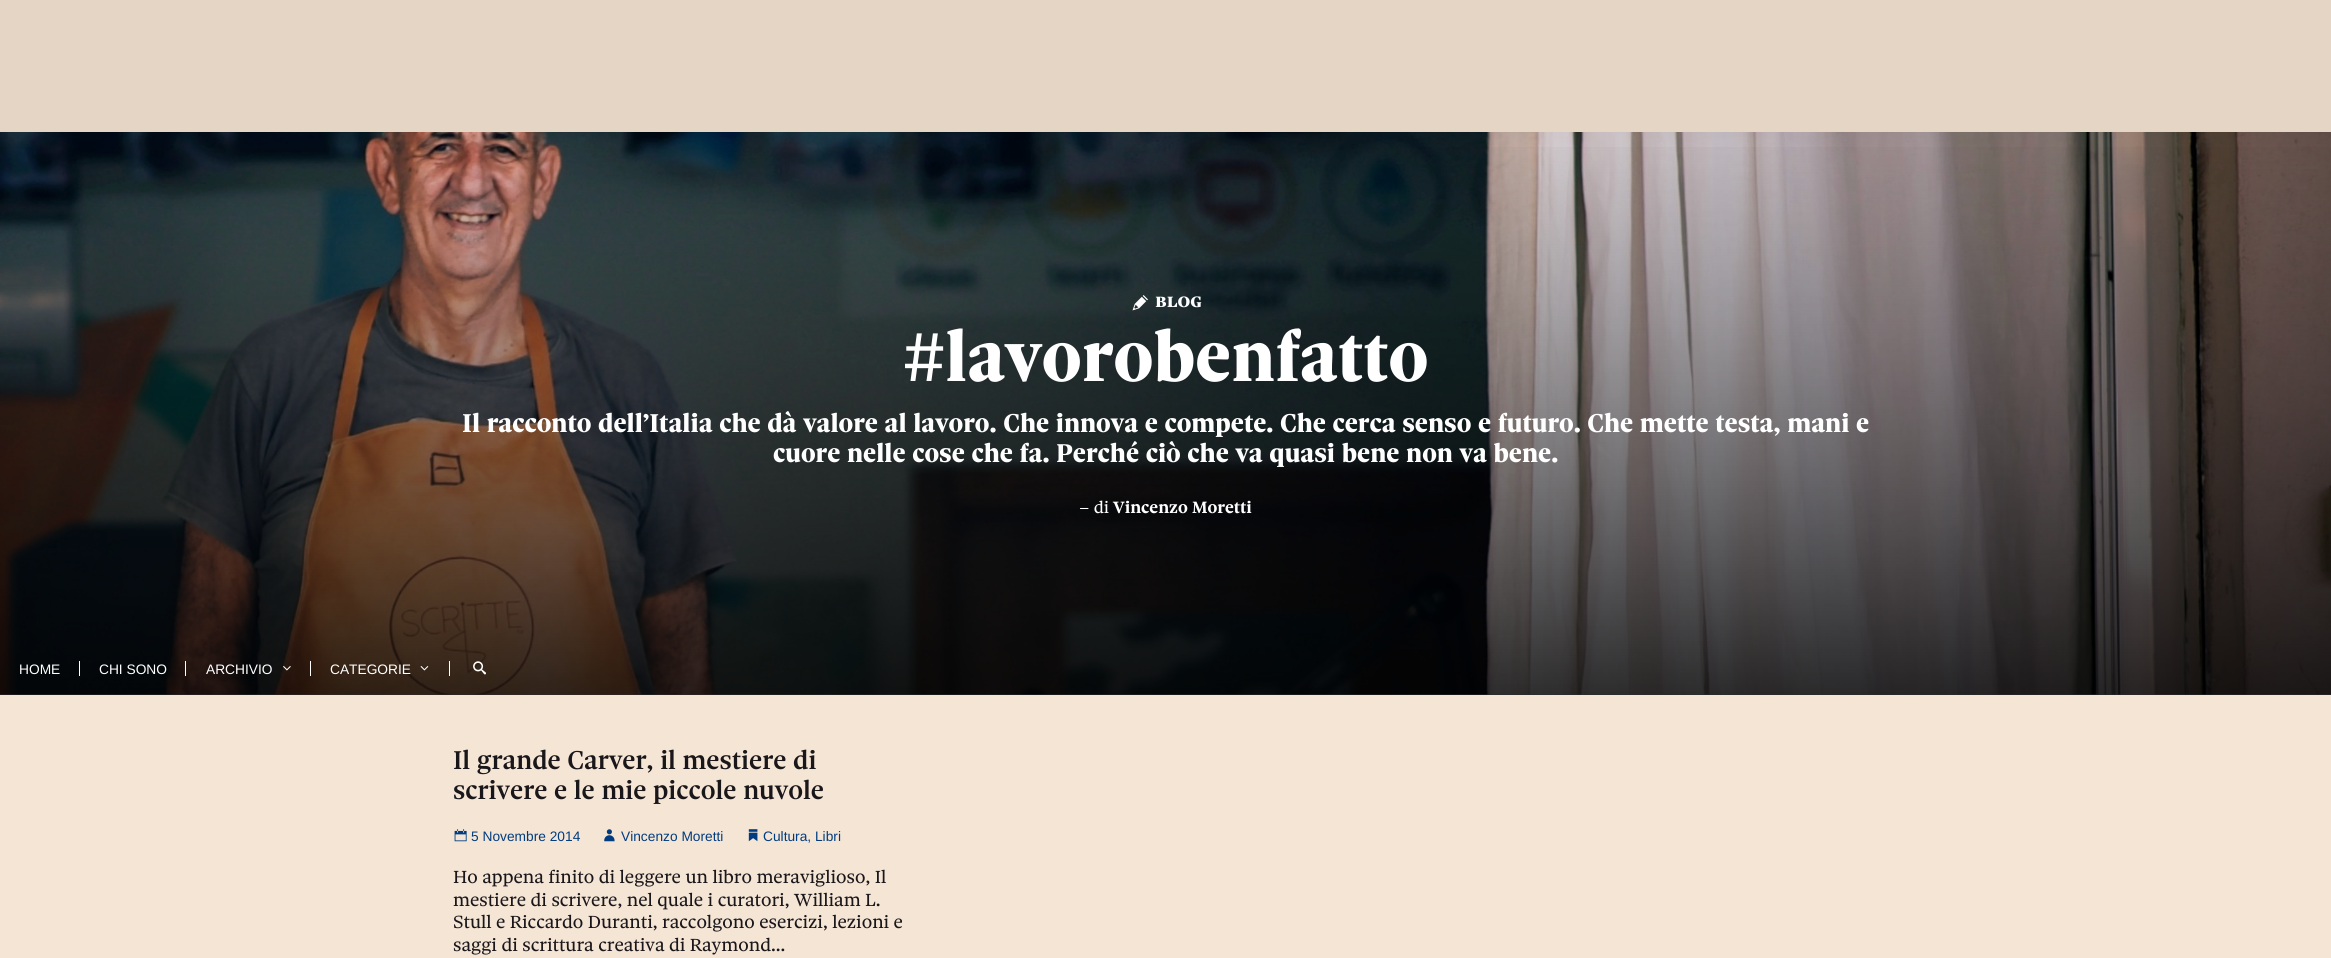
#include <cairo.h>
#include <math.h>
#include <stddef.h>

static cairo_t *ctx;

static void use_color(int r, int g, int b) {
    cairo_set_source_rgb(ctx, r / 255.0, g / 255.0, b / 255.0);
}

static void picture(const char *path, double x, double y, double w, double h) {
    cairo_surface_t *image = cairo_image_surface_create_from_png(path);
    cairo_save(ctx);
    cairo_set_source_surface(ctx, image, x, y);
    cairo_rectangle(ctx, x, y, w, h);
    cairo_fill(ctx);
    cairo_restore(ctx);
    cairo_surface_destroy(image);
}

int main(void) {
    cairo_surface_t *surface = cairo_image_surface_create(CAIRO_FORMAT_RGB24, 2331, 958);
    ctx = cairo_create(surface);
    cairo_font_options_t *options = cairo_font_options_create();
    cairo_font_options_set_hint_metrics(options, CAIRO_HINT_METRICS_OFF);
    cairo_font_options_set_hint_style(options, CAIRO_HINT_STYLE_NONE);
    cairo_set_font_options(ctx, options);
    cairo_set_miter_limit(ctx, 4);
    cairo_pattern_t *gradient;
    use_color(245, 229, 213);
    cairo_paint(ctx);
    use_color(229, 213, 197);
    cairo_rectangle(ctx, 0, 0, 2331, 132);
    cairo_fill(ctx);
    picture("img1.png", 0, 132, 2331, 563);
    gradient = cairo_pattern_create_linear(1166, 132, 1166, 695);
    cairo_pattern_add_color_stop_rgba(gradient, 0, 0, 0, 0, 0);
    cairo_pattern_add_color_stop_rgba(gradient, 1, 0, 0, 0, 0.8);
    cairo_set_source(ctx, gradient);
    cairo_pattern_destroy(gradient);
    cairo_rectangle(ctx, 0, 147, 2331, 548);
    cairo_fill(ctx);
    picture("img2.png", 1132, 295, 16, 16);
    cairo_select_font_face(ctx, "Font", CAIRO_FONT_SLANT_NORMAL, CAIRO_FONT_WEIGHT_BOLD);
    cairo_set_font_size(ctx, 20);
    use_color(255, 255, 255);
    cairo_move_to(ctx, 1155, 307);
    cairo_show_text(ctx, "blog");
    cairo_select_font_face(ctx, "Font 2", CAIRO_FONT_SLANT_NORMAL, CAIRO_FONT_WEIGHT_BOLD);
    cairo_set_font_size(ctx, 75);
    cairo_move_to(ctx, 903, 381);
    cairo_show_text(ctx, "#lavorobenfatto");
    cairo_set_font_size(ctx, 27.5);
    cairo_move_to(ctx, 462, 432);
    cairo_show_text(ctx, "Il racconto dell’Italia che dà valore al lavoro. Che innova e compete. Che cerca senso e futuro. Che mette testa, mani e");
    cairo_move_to(ctx, 773, 462);
    cairo_show_text(ctx, "cuore nelle cose che fa. Perché ciò che va quasi bene non va bene.");
    cairo_select_font_face(ctx, "Font", CAIRO_FONT_SLANT_NORMAL, CAIRO_FONT_WEIGHT_NORMAL);
    cairo_set_font_size(ctx, 17.5);
    cairo_move_to(ctx, 1079, 513);
    cairo_show_text(ctx, "– di");
    cairo_select_font_face(ctx, "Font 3", CAIRO_FONT_SLANT_NORMAL, CAIRO_FONT_WEIGHT_BOLD);
    cairo_move_to(ctx, 1113, 513);
    cairo_show_text(ctx, "Vincenzo Moretti");
    cairo_rectangle(ctx, 79, 661, 1, 15);
    cairo_fill(ctx);
    cairo_select_font_face(ctx, "Liberation Sans", CAIRO_FONT_SLANT_NORMAL, CAIRO_FONT_WEIGHT_NORMAL);
    cairo_set_font_size(ctx, 13.75);
    cairo_move_to(ctx, 19, 674);
    cairo_show_text(ctx, "HOME");
    cairo_rectangle(ctx, 185, 661, 1, 15);
    cairo_fill(ctx);
    cairo_move_to(ctx, 99, 674);
    cairo_show_text(ctx, "CHI SONO");
    cairo_rectangle(ctx, 310, 661, 1, 15);
    cairo_fill(ctx);
    cairo_move_to(ctx, 206, 674);
    cairo_show_text(ctx, "ARCHIVIO");
    picture("img3.png", 283, 666, 8, 5);
    cairo_rectangle(ctx, 449, 661, 1, 15);
    cairo_fill(ctx);
    cairo_move_to(ctx, 330, 674);
    cairo_show_text(ctx, "CATEGORIE");
    picture("img4.png", 420, 666, 9, 5);
    picture("img5.png", 473, 661, 13, 14);
    cairo_select_font_face(ctx, "Font Medium", CAIRO_FONT_SLANT_NORMAL, CAIRO_FONT_WEIGHT_NORMAL);
    cairo_set_font_size(ctx, 27.5);
    use_color(26, 23, 27);
    cairo_move_to(ctx, 453, 769);
    cairo_show_text(ctx, "Il grande Carver, il mestiere di");
    cairo_move_to(ctx, 453, 799);
    cairo_show_text(ctx, "scrivere e le mie piccole nuvole");
    picture("img6.png", 454, 829, 13, 13);
    cairo_select_font_face(ctx, "Liberation Sans", CAIRO_FONT_SLANT_NORMAL, CAIRO_FONT_WEIGHT_NORMAL);
    cairo_set_font_size(ctx, 13.75);
    use_color(0, 60, 127);
    cairo_move_to(ctx, 471, 841);
    cairo_show_text(ctx, "5 Novembre 2014");
    picture("img7.png", 604, 829, 11, 13);
    cairo_move_to(ctx, 621, 841);
    cairo_show_text(ctx, "Vincenzo Moretti");
    picture("img8.png", 748, 829, 10, 13);
    cairo_move_to(ctx, 763, 841);
    cairo_show_text(ctx, "Cultura, Libri");
    cairo_select_font_face(ctx, "Font", CAIRO_FONT_SLANT_NORMAL, CAIRO_FONT_WEIGHT_NORMAL);
    cairo_set_font_size(ctx, 18.75);
    use_color(26, 23, 27);
    cairo_move_to(ctx, 453, 883);
    cairo_show_text(ctx, "Ho appena finito di leggere un libro meraviglioso, Il");
    cairo_move_to(ctx, 453, 906);
    cairo_show_text(ctx, "mestiere di scrivere, nel quale i curatori, William L.");
    cairo_move_to(ctx, 453, 928);
    cairo_show_text(ctx, "Stull e Riccardo Duranti, raccolgono esercizi, lezioni e");
    cairo_move_to(ctx, 453, 951);
    cairo_show_text(ctx, "saggi di scrittura creativa di Raymond...");
    cairo_surface_write_to_png(surface, "result.png");
    cairo_font_options_destroy(options);
    cairo_destroy(ctx);
    cairo_surface_destroy(surface);
    return 0;
}
